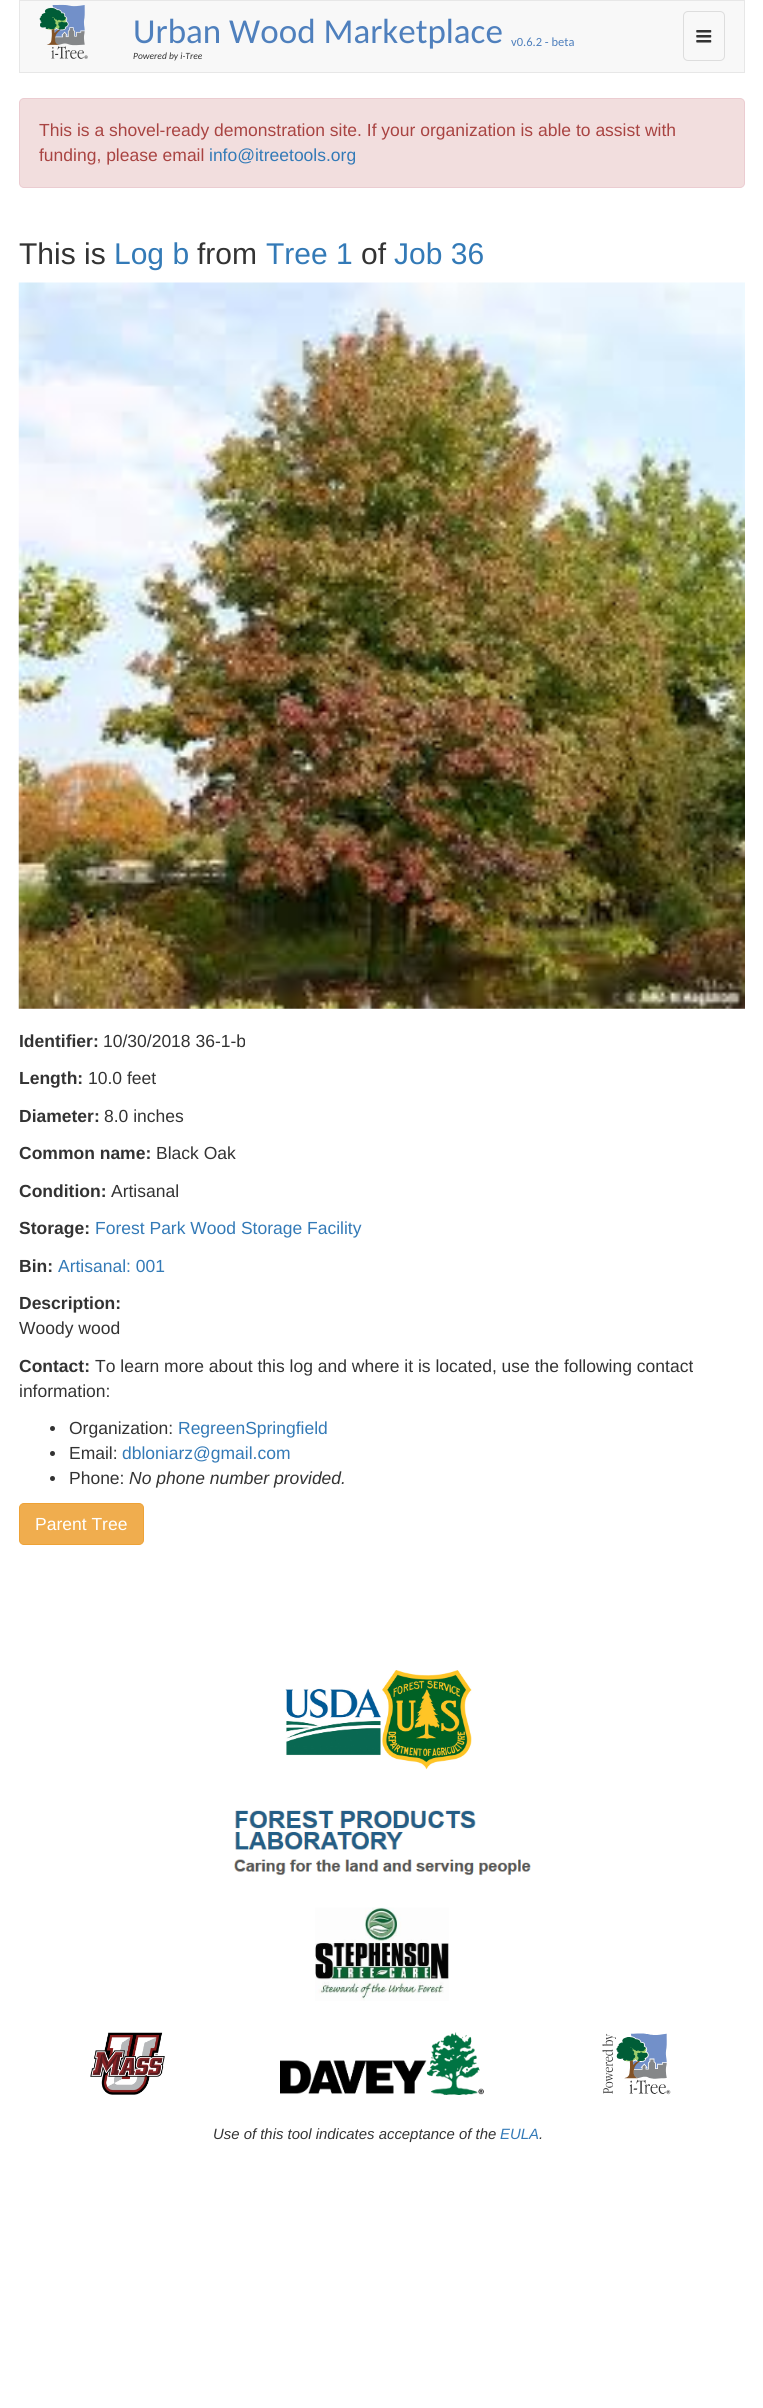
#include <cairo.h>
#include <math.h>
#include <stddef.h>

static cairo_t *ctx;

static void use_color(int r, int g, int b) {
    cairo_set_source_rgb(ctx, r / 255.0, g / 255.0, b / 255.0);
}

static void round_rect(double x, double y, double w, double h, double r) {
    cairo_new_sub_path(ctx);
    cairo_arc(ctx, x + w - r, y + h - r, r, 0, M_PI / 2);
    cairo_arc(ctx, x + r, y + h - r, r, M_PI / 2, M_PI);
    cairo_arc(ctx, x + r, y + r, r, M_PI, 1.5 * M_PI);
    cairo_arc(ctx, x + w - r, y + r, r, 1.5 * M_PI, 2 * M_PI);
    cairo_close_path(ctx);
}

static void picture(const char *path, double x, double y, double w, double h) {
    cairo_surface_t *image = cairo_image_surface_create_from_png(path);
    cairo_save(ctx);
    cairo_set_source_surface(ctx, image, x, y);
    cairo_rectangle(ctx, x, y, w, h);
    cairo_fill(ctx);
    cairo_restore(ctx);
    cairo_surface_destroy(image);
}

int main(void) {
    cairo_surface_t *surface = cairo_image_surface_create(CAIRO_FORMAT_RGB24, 763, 2408);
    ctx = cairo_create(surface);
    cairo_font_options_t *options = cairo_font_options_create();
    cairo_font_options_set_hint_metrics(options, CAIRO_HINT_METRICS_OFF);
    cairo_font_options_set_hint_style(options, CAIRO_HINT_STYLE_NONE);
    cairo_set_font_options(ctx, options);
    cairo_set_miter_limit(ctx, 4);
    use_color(255, 255, 255);
    cairo_paint(ctx);
    use_color(248, 248, 248);
    cairo_rectangle(ctx, 19.5, 0.5, 725, 72);
    cairo_fill_preserve(ctx);
    use_color(231, 231, 231);
    cairo_set_line_width(ctx, 1);
    cairo_stroke(ctx);
    picture("img1.png", 39, 4, 49, 55);
    cairo_select_font_face(ctx, "Carlito", CAIRO_FONT_SLANT_NORMAL, CAIRO_FONT_WEIGHT_NORMAL);
    cairo_set_font_size(ctx, 35);
    use_color(79, 128, 189);
    cairo_move_to(ctx, 133, 43);
    cairo_show_text(ctx, "Urban Wood Marketplace");
    cairo_set_font_size(ctx, 12.5);
    cairo_move_to(ctx, 511, 46);
    cairo_show_text(ctx, "v0.6.2 - beta");
    cairo_select_font_face(ctx, "Carlito", CAIRO_FONT_SLANT_ITALIC, CAIRO_FONT_WEIGHT_NORMAL);
    cairo_set_font_size(ctx, 9.5);
    use_color(51, 51, 51);
    cairo_move_to(ctx, 133, 59);
    cairo_show_text(ctx, "Powered by i-Tree");
    round_rect(683.5, 11.5, 41, 49, 4.5);
    use_color(221, 221, 221);
    cairo_stroke(ctx);
    picture("img2.png", 696, 30, 16, 13);
    use_color(242, 222, 222);
    round_rect(19.5, 98.5, 725, 89, 4.5);
    cairo_fill_preserve(ctx);
    use_color(235, 204, 209);
    cairo_stroke(ctx);
    cairo_select_font_face(ctx, "Liberation Sans", CAIRO_FONT_SLANT_NORMAL, CAIRO_FONT_WEIGHT_NORMAL);
    cairo_set_font_size(ctx, 17.5);
    use_color(169, 68, 66);
    cairo_move_to(ctx, 39, 136);
    cairo_show_text(ctx, "This is a shovel-ready demonstration site. If your organization is able to assist with");
    cairo_move_to(ctx, 39, 161);
    cairo_show_text(ctx, "funding, please email");
    use_color(51, 122, 183);
    cairo_move_to(ctx, 209, 161);
    cairo_show_text(ctx, "info@itreetools.org");
    cairo_set_font_size(ctx, 30);
    use_color(51, 51, 51);
    cairo_move_to(ctx, 19, 264);
    cairo_show_text(ctx, "This is");
    use_color(51, 122, 183);
    cairo_move_to(ctx, 114, 264);
    cairo_show_text(ctx, "Log b");
    use_color(51, 51, 51);
    cairo_move_to(ctx, 197, 264);
    cairo_show_text(ctx, "from");
    use_color(51, 122, 183);
    cairo_move_to(ctx, 266, 264);
    cairo_show_text(ctx, "Tree 1");
    use_color(51, 51, 51);
    cairo_move_to(ctx, 361, 264);
    cairo_show_text(ctx, "of");
    use_color(51, 122, 183);
    cairo_move_to(ctx, 394, 264);
    cairo_show_text(ctx, "Job 36");
    picture("img3.png", 18, 282, 727, 727);
    cairo_select_font_face(ctx, "Liberation Sans", CAIRO_FONT_SLANT_NORMAL, CAIRO_FONT_WEIGHT_BOLD);
    cairo_set_font_size(ctx, 17.5);
    use_color(51, 51, 51);
    cairo_move_to(ctx, 19, 1047);
    cairo_show_text(ctx, "Identifier:");
    cairo_select_font_face(ctx, "Liberation Sans", CAIRO_FONT_SLANT_NORMAL, CAIRO_FONT_WEIGHT_NORMAL);
    cairo_move_to(ctx, 103, 1047);
    cairo_show_text(ctx, "10/30/2018 36-1-b");
    cairo_select_font_face(ctx, "Liberation Sans", CAIRO_FONT_SLANT_NORMAL, CAIRO_FONT_WEIGHT_BOLD);
    cairo_move_to(ctx, 19, 1084);
    cairo_show_text(ctx, "Length:");
    cairo_select_font_face(ctx, "Liberation Sans", CAIRO_FONT_SLANT_NORMAL, CAIRO_FONT_WEIGHT_NORMAL);
    cairo_move_to(ctx, 88, 1084);
    cairo_show_text(ctx, "10.0 feet");
    cairo_select_font_face(ctx, "Liberation Sans", CAIRO_FONT_SLANT_NORMAL, CAIRO_FONT_WEIGHT_BOLD);
    cairo_move_to(ctx, 19, 1122);
    cairo_show_text(ctx, "Diameter:");
    cairo_select_font_face(ctx, "Liberation Sans", CAIRO_FONT_SLANT_NORMAL, CAIRO_FONT_WEIGHT_NORMAL);
    cairo_move_to(ctx, 104, 1122);
    cairo_show_text(ctx, "8.0 inches");
    cairo_select_font_face(ctx, "Liberation Sans", CAIRO_FONT_SLANT_NORMAL, CAIRO_FONT_WEIGHT_BOLD);
    cairo_move_to(ctx, 19, 1159);
    cairo_show_text(ctx, "Common name:");
    cairo_select_font_face(ctx, "Liberation Sans", CAIRO_FONT_SLANT_NORMAL, CAIRO_FONT_WEIGHT_NORMAL);
    cairo_move_to(ctx, 156, 1159);
    cairo_show_text(ctx, "Black Oak");
    cairo_select_font_face(ctx, "Liberation Sans", CAIRO_FONT_SLANT_NORMAL, CAIRO_FONT_WEIGHT_BOLD);
    cairo_move_to(ctx, 19, 1197);
    cairo_show_text(ctx, "Condition:");
    cairo_select_font_face(ctx, "Liberation Sans", CAIRO_FONT_SLANT_NORMAL, CAIRO_FONT_WEIGHT_NORMAL);
    cairo_move_to(ctx, 111, 1197);
    cairo_show_text(ctx, "Artisanal");
    cairo_select_font_face(ctx, "Liberation Sans", CAIRO_FONT_SLANT_NORMAL, CAIRO_FONT_WEIGHT_BOLD);
    cairo_move_to(ctx, 19, 1234);
    cairo_show_text(ctx, "Storage:");
    cairo_select_font_face(ctx, "Liberation Sans", CAIRO_FONT_SLANT_NORMAL, CAIRO_FONT_WEIGHT_NORMAL);
    use_color(51, 122, 183);
    cairo_move_to(ctx, 95, 1234);
    cairo_show_text(ctx, "Forest Park Wood Storage Facility");
    cairo_select_font_face(ctx, "Liberation Sans", CAIRO_FONT_SLANT_NORMAL, CAIRO_FONT_WEIGHT_BOLD);
    use_color(51, 51, 51);
    cairo_move_to(ctx, 19, 1272);
    cairo_show_text(ctx, "Bin:");
    cairo_select_font_face(ctx, "Liberation Sans", CAIRO_FONT_SLANT_NORMAL, CAIRO_FONT_WEIGHT_NORMAL);
    use_color(51, 122, 183);
    cairo_move_to(ctx, 58, 1272);
    cairo_show_text(ctx, "Artisanal: 001");
    cairo_select_font_face(ctx, "Liberation Sans", CAIRO_FONT_SLANT_NORMAL, CAIRO_FONT_WEIGHT_BOLD);
    use_color(51, 51, 51);
    cairo_move_to(ctx, 19, 1309);
    cairo_show_text(ctx, "Description:");
    cairo_select_font_face(ctx, "Liberation Sans", CAIRO_FONT_SLANT_NORMAL, CAIRO_FONT_WEIGHT_NORMAL);
    cairo_move_to(ctx, 19, 1334);
    cairo_show_text(ctx, "Woody wood");
    cairo_select_font_face(ctx, "Liberation Sans", CAIRO_FONT_SLANT_NORMAL, CAIRO_FONT_WEIGHT_BOLD);
    cairo_move_to(ctx, 19, 1372);
    cairo_show_text(ctx, "Contact:");
    cairo_select_font_face(ctx, "Liberation Sans", CAIRO_FONT_SLANT_NORMAL, CAIRO_FONT_WEIGHT_NORMAL);
    cairo_move_to(ctx, 95, 1372);
    cairo_show_text(ctx, "To learn more about this log and where it is located, use the following contact");
    cairo_move_to(ctx, 19, 1397);
    cairo_show_text(ctx, "information:");
    cairo_new_path(ctx);
    cairo_arc(ctx, 52.5, 1428.5, 2.5, 0, 2 * M_PI);
    cairo_fill(ctx);
    cairo_move_to(ctx, 69, 1434);
    cairo_show_text(ctx, "Organization:");
    use_color(51, 122, 183);
    cairo_move_to(ctx, 178, 1434);
    cairo_show_text(ctx, "RegreenSpringfield");
    use_color(51, 51, 51);
    cairo_new_path(ctx);
    cairo_arc(ctx, 52.5, 1453.5, 2.5, 0, 2 * M_PI);
    cairo_fill(ctx);
    cairo_move_to(ctx, 69, 1459);
    cairo_show_text(ctx, "Email:");
    use_color(51, 122, 183);
    cairo_move_to(ctx, 122, 1459);
    cairo_show_text(ctx, "dbloniarz@gmail.com");
    use_color(51, 51, 51);
    cairo_new_path(ctx);
    cairo_arc(ctx, 52.5, 1478.5, 2.5, 0, 2 * M_PI);
    cairo_fill(ctx);
    cairo_move_to(ctx, 69, 1484);
    cairo_show_text(ctx, "Phone:");
    cairo_select_font_face(ctx, "Liberation Sans", CAIRO_FONT_SLANT_ITALIC, CAIRO_FONT_WEIGHT_NORMAL);
    cairo_move_to(ctx, 129, 1484);
    cairo_show_text(ctx, "No phone number provided.");
    use_color(240, 173, 78);
    round_rect(19.5, 1503.5, 124, 41, 4.5);
    cairo_fill_preserve(ctx);
    use_color(238, 162, 54);
    cairo_stroke(ctx);
    cairo_select_font_face(ctx, "Liberation Sans", CAIRO_FONT_SLANT_NORMAL, CAIRO_FONT_WEIGHT_NORMAL);
    use_color(255, 255, 255);
    cairo_move_to(ctx, 35, 1530);
    cairo_show_text(ctx, "Parent Tree");
    picture("img4.png", 285, 1670, 187, 100);
    picture("img5.png", 234, 1810, 297, 65);
    picture("img6.png", 315, 1907, 134, 94);
    picture("img7.png", 90, 2032, 75, 63);
    picture("img8.png", 280, 2032, 204, 63);
    picture("img9.png", 602, 2033, 69, 62);
    cairo_select_font_face(ctx, "Liberation Sans", CAIRO_FONT_SLANT_ITALIC, CAIRO_FONT_WEIGHT_NORMAL);
    cairo_set_font_size(ctx, 14.9);
    use_color(51, 51, 51);
    cairo_move_to(ctx, 213, 2139);
    cairo_show_text(ctx, "Use of this tool indicates acceptance of the");
    use_color(51, 122, 183);
    cairo_move_to(ctx, 500, 2139);
    cairo_show_text(ctx, "EULA");
    use_color(51, 51, 51);
    cairo_move_to(ctx, 539, 2139);
    cairo_show_text(ctx, ".");
    cairo_surface_write_to_png(surface, "result.png");
    cairo_font_options_destroy(options);
    cairo_destroy(ctx);
    cairo_surface_destroy(surface);
    return 0;
}
